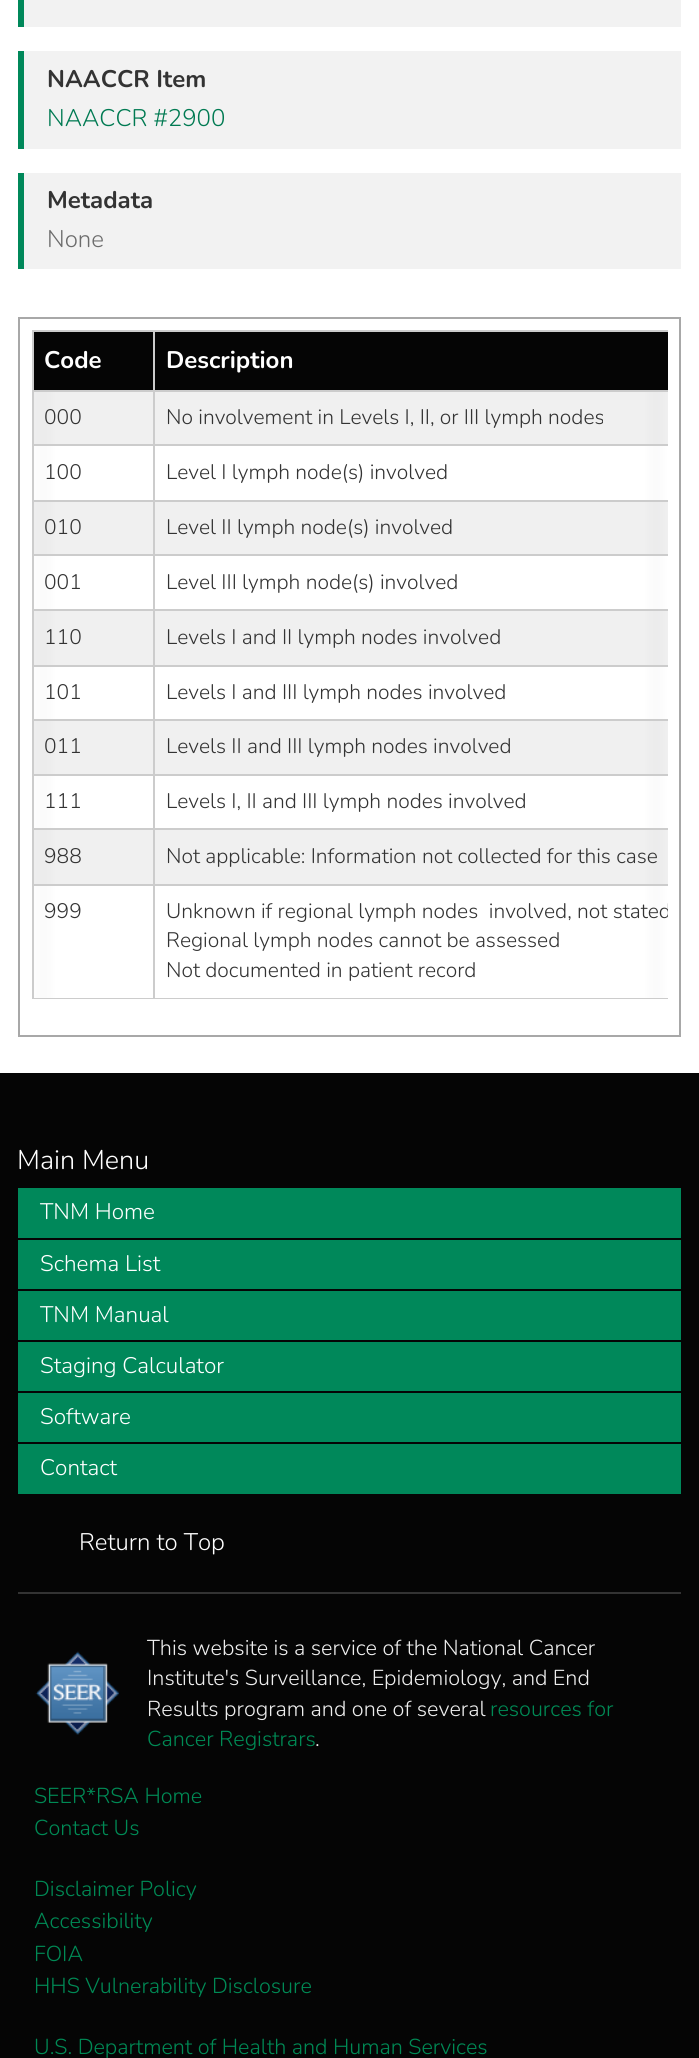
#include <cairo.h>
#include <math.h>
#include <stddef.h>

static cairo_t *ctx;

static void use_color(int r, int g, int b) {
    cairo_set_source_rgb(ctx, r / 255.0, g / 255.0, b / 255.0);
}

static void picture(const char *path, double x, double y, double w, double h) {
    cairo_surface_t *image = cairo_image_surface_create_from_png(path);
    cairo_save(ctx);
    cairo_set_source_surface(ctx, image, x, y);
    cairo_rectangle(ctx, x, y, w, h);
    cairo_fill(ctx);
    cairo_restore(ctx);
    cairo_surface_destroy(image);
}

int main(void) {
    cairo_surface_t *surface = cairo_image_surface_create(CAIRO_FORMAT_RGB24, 699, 2058);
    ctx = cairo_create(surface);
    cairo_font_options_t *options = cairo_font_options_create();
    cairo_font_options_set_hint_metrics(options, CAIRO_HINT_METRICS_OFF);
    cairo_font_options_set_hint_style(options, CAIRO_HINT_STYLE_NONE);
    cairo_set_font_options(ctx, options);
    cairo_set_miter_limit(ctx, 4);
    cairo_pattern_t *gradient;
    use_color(5, 5, 5);
    cairo_paint(ctx);
    use_color(255, 255, 255);
    cairo_rectangle(ctx, 0, 0, 699, 1073);
    cairo_fill(ctx);
    use_color(242, 242, 242);
    cairo_rectangle(ctx, 24, 0, 657, 27);
    cairo_fill(ctx);
    use_color(0, 136, 90);
    cairo_rectangle(ctx, 18, 0, 6, 27);
    cairo_fill(ctx);
    use_color(242, 242, 242);
    cairo_rectangle(ctx, 24, 51, 657, 98);
    cairo_fill(ctx);
    use_color(0, 136, 90);
    cairo_rectangle(ctx, 18, 51, 6, 98);
    cairo_fill(ctx);
    cairo_select_font_face(ctx, "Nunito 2 ExtraLight", CAIRO_FONT_SLANT_NORMAL, CAIRO_FONT_WEIGHT_NORMAL);
    cairo_set_font_size(ctx, 24);
    use_color(51, 51, 51);
    cairo_move_to(ctx, 47, 87);
    cairo_show_text(ctx, "NAACCR Item");
    cairo_select_font_face(ctx, "Nunito ExtraLight", CAIRO_FONT_SLANT_NORMAL, CAIRO_FONT_WEIGHT_NORMAL);
    use_color(0, 122, 82);
    cairo_move_to(ctx, 47, 126);
    cairo_show_text(ctx, "NAACCR #2900");
    use_color(242, 242, 242);
    cairo_rectangle(ctx, 24, 173, 657, 96);
    cairo_fill(ctx);
    use_color(0, 136, 90);
    cairo_rectangle(ctx, 18, 173, 6, 96);
    cairo_fill(ctx);
    cairo_select_font_face(ctx, "Nunito 2 ExtraLight", CAIRO_FONT_SLANT_NORMAL, CAIRO_FONT_WEIGHT_NORMAL);
    use_color(51, 51, 51);
    cairo_move_to(ctx, 47, 208);
    cairo_show_text(ctx, "Metadata");
    cairo_select_font_face(ctx, "Nunito ExtraLight", CAIRO_FONT_SLANT_NORMAL, CAIRO_FONT_WEIGHT_NORMAL);
    use_color(108, 108, 108);
    cairo_move_to(ctx, 47, 247);
    cairo_show_text(ctx, "None");
    cairo_rectangle(ctx, 19, 318, 661, 718);
    use_color(168, 168, 168);
    cairo_stroke(ctx);
    gradient = cairo_pattern_create_linear(668, 665, 644, 665);
    cairo_pattern_add_color_stop_rgba(gradient, 0, 0.765, 0.765, 0.773, 1);
    cairo_pattern_add_color_stop_rgba(gradient, 1, 1, 1, 1, 1);
    cairo_set_source(ctx, gradient);
    cairo_pattern_destroy(gradient);
    cairo_rectangle(ctx, 645, 392, 22, 606);
    cairo_fill(ctx);
    gradient = cairo_pattern_create_linear(31, 665, 56, 665);
    cairo_pattern_add_color_stop_rgba(gradient, 0, 0.765, 0.765, 0.773, 1);
    cairo_pattern_add_color_stop_rgba(gradient, 1, 1, 1, 1, 1);
    cairo_set_source(ctx, gradient);
    cairo_pattern_destroy(gradient);
    cairo_rectangle(ctx, 34, 392, 21, 606);
    cairo_fill(ctx);
    gradient = cairo_pattern_create_linear(668, 665, 572, 665);
    cairo_pattern_add_color_stop_rgba(gradient, 0, 1, 1, 1, 1);
    cairo_pattern_add_color_stop_rgba(gradient, 1, 1, 1, 1, 0);
    cairo_set_source(ctx, gradient);
    cairo_pattern_destroy(gradient);
    cairo_rectangle(ctx, 645, 392, 22, 606);
    cairo_fill(ctx);
    gradient = cairo_pattern_create_linear(31, 665, 128, 665);
    cairo_pattern_add_color_stop_rgba(gradient, 0, 1, 1, 1, 1);
    cairo_pattern_add_color_stop_rgba(gradient, 1, 1, 1, 1, 0);
    cairo_set_source(ctx, gradient);
    cairo_pattern_destroy(gradient);
    cairo_rectangle(ctx, 34, 392, 21, 606);
    cairo_fill(ctx);
    use_color(5, 5, 5);
    cairo_rectangle(ctx, 34, 332, 119, 58);
    cairo_fill(ctx);
    use_color(204, 204, 204);
    cairo_rectangle(ctx, 153, 330, 515, 2);
    cairo_fill(ctx);
    cairo_rectangle(ctx, 153, 390, 515, 2);
    cairo_fill(ctx);
    cairo_rectangle(ctx, 153, 444, 515, 2);
    cairo_fill(ctx);
    cairo_rectangle(ctx, 153, 500, 515, 2);
    cairo_fill(ctx);
    cairo_rectangle(ctx, 153, 554, 515, 2);
    cairo_fill(ctx);
    cairo_rectangle(ctx, 153, 609, 515, 2);
    cairo_fill(ctx);
    cairo_rectangle(ctx, 153, 665, 515, 2);
    cairo_fill(ctx);
    cairo_rectangle(ctx, 153, 719, 515, 2);
    cairo_fill(ctx);
    cairo_rectangle(ctx, 153, 774, 515, 2);
    cairo_fill(ctx);
    cairo_rectangle(ctx, 153, 828, 515, 2);
    cairo_fill(ctx);
    cairo_rectangle(ctx, 153, 884, 515, 2);
    cairo_fill(ctx);
    cairo_rectangle(ctx, 153, 998, 515, 1);
    cairo_fill(ctx);
    cairo_rectangle(ctx, 153, 884, 2, 115);
    cairo_fill(ctx);
    cairo_rectangle(ctx, 32, 884, 123, 2);
    cairo_fill(ctx);
    cairo_rectangle(ctx, 153, 828, 2, 57);
    cairo_fill(ctx);
    cairo_rectangle(ctx, 32, 828, 123, 2);
    cairo_fill(ctx);
    cairo_rectangle(ctx, 153, 774, 2, 56);
    cairo_fill(ctx);
    cairo_rectangle(ctx, 32, 774, 123, 2);
    cairo_fill(ctx);
    cairo_rectangle(ctx, 153, 719, 2, 57);
    cairo_fill(ctx);
    cairo_rectangle(ctx, 32, 719, 123, 2);
    cairo_fill(ctx);
    cairo_rectangle(ctx, 153, 665, 2, 55);
    cairo_fill(ctx);
    cairo_rectangle(ctx, 32, 665, 123, 2);
    cairo_fill(ctx);
    cairo_rectangle(ctx, 153, 609, 2, 57);
    cairo_fill(ctx);
    cairo_rectangle(ctx, 32, 609, 123, 2);
    cairo_fill(ctx);
    cairo_rectangle(ctx, 153, 554, 2, 57);
    cairo_fill(ctx);
    cairo_rectangle(ctx, 32, 554, 123, 2);
    cairo_fill(ctx);
    cairo_rectangle(ctx, 153, 500, 2, 55);
    cairo_fill(ctx);
    cairo_rectangle(ctx, 32, 500, 123, 2);
    cairo_fill(ctx);
    cairo_rectangle(ctx, 153, 444, 2, 57);
    cairo_fill(ctx);
    cairo_rectangle(ctx, 32, 444, 123, 2);
    cairo_fill(ctx);
    cairo_rectangle(ctx, 153, 390, 2, 56);
    cairo_fill(ctx);
    cairo_rectangle(ctx, 32, 390, 123, 2);
    cairo_fill(ctx);
    cairo_rectangle(ctx, 153, 330, 2, 62);
    cairo_fill(ctx);
    cairo_rectangle(ctx, 32, 330, 123, 2);
    cairo_fill(ctx);
    cairo_rectangle(ctx, 32, 998, 123, 1);
    cairo_fill(ctx);
    cairo_rectangle(ctx, 32, 884, 2, 115);
    cairo_fill(ctx);
    cairo_rectangle(ctx, 32, 828, 2, 57);
    cairo_fill(ctx);
    cairo_rectangle(ctx, 32, 774, 2, 56);
    cairo_fill(ctx);
    cairo_rectangle(ctx, 32, 719, 2, 57);
    cairo_fill(ctx);
    cairo_rectangle(ctx, 32, 665, 2, 55);
    cairo_fill(ctx);
    cairo_rectangle(ctx, 32, 609, 2, 57);
    cairo_fill(ctx);
    cairo_rectangle(ctx, 32, 554, 2, 57);
    cairo_fill(ctx);
    cairo_rectangle(ctx, 32, 500, 2, 55);
    cairo_fill(ctx);
    cairo_rectangle(ctx, 32, 444, 2, 57);
    cairo_fill(ctx);
    cairo_rectangle(ctx, 32, 390, 2, 56);
    cairo_fill(ctx);
    cairo_rectangle(ctx, 32, 330, 2, 62);
    cairo_fill(ctx);
    cairo_select_font_face(ctx, "Nunito 2 ExtraLight", CAIRO_FONT_SLANT_NORMAL, CAIRO_FONT_WEIGHT_NORMAL);
    use_color(255, 255, 255);
    cairo_move_to(ctx, 44, 368);
    cairo_show_text(ctx, "Code");
    use_color(5, 5, 5);
    cairo_rectangle(ctx, 155, 332, 513, 58);
    cairo_fill(ctx);
    use_color(255, 255, 255);
    cairo_move_to(ctx, 166, 368);
    cairo_show_text(ctx, "Description");
    cairo_set_source_rgba(ctx, 0, 0, 0, 0.06);
    cairo_rectangle(ctx, 34, 392, 119, 52);
    cairo_fill(ctx);
    cairo_select_font_face(ctx, "Nunito ExtraLight", CAIRO_FONT_SLANT_NORMAL, CAIRO_FONT_WEIGHT_NORMAL);
    cairo_set_font_size(ctx, 21);
    use_color(51, 51, 51);
    cairo_move_to(ctx, 44, 424);
    cairo_show_text(ctx, "000");
    cairo_set_source_rgba(ctx, 0, 0, 0, 0.06);
    cairo_rectangle(ctx, 155, 392, 513, 52);
    cairo_fill(ctx);
    use_color(51, 51, 51);
    cairo_move_to(ctx, 166, 424);
    cairo_show_text(ctx, "No involvement in Levels I, II, or III lymph nodes");
    cairo_move_to(ctx, 44, 479);
    cairo_show_text(ctx, "100");
    cairo_move_to(ctx, 166, 479);
    cairo_show_text(ctx, "Level I lymph node(s) involved");
    cairo_set_source_rgba(ctx, 0, 0, 0, 0.06);
    cairo_rectangle(ctx, 34, 502, 119, 52);
    cairo_fill(ctx);
    use_color(51, 51, 51);
    cairo_move_to(ctx, 44, 534);
    cairo_show_text(ctx, "010");
    cairo_set_source_rgba(ctx, 0, 0, 0, 0.06);
    cairo_rectangle(ctx, 155, 502, 513, 52);
    cairo_fill(ctx);
    use_color(51, 51, 51);
    cairo_move_to(ctx, 166, 534);
    cairo_show_text(ctx, "Level II lymph node(s) involved");
    cairo_move_to(ctx, 44, 589);
    cairo_show_text(ctx, "001");
    cairo_move_to(ctx, 166, 589);
    cairo_show_text(ctx, "Level III lymph node(s) involved");
    cairo_set_source_rgba(ctx, 0, 0, 0, 0.06);
    cairo_rectangle(ctx, 34, 611, 119, 54);
    cairo_fill(ctx);
    use_color(51, 51, 51);
    cairo_move_to(ctx, 44, 644);
    cairo_show_text(ctx, "110");
    cairo_set_source_rgba(ctx, 0, 0, 0, 0.06);
    cairo_rectangle(ctx, 155, 611, 513, 54);
    cairo_fill(ctx);
    use_color(51, 51, 51);
    cairo_move_to(ctx, 166, 644);
    cairo_show_text(ctx, "Levels I and II lymph nodes involved");
    cairo_move_to(ctx, 44, 699);
    cairo_show_text(ctx, "101");
    cairo_move_to(ctx, 166, 699);
    cairo_show_text(ctx, "Levels I and III lymph nodes involved");
    cairo_set_source_rgba(ctx, 0, 0, 0, 0.06);
    cairo_rectangle(ctx, 34, 721, 119, 53);
    cairo_fill(ctx);
    use_color(51, 51, 51);
    cairo_move_to(ctx, 44, 753);
    cairo_show_text(ctx, "011");
    cairo_set_source_rgba(ctx, 0, 0, 0, 0.06);
    cairo_rectangle(ctx, 155, 721, 513, 53);
    cairo_fill(ctx);
    use_color(51, 51, 51);
    cairo_move_to(ctx, 166, 753);
    cairo_show_text(ctx, "Levels II and III lymph nodes involved");
    cairo_move_to(ctx, 44, 808);
    cairo_show_text(ctx, "111");
    cairo_move_to(ctx, 166, 808);
    cairo_show_text(ctx, "Levels I, II and III lymph nodes involved");
    cairo_set_source_rgba(ctx, 0, 0, 0, 0.06);
    cairo_rectangle(ctx, 34, 830, 119, 54);
    cairo_fill(ctx);
    use_color(51, 51, 51);
    cairo_move_to(ctx, 44, 863);
    cairo_show_text(ctx, "988");
    cairo_set_source_rgba(ctx, 0, 0, 0, 0.06);
    cairo_rectangle(ctx, 155, 830, 513, 54);
    cairo_fill(ctx);
    use_color(51, 51, 51);
    cairo_move_to(ctx, 166, 863);
    cairo_show_text(ctx, "Not applicable: Information not collected for this case");
    cairo_move_to(ctx, 44, 918);
    cairo_show_text(ctx, "999");
    cairo_save(ctx);
    cairo_rectangle(ctx, 32, 330, 636, 669);
    cairo_clip(ctx);
    cairo_move_to(ctx, 166, 918);
    cairo_show_text(ctx, "Unknown if regional lymph nodes  involved, not stated");
    cairo_restore(ctx);
    cairo_move_to(ctx, 166, 947);
    cairo_show_text(ctx, "Regional lymph nodes cannot be assessed");
    cairo_move_to(ctx, 166, 977);
    cairo_show_text(ctx, "Not documented in patient record");
    use_color(0, 136, 90);
    cairo_rectangle(ctx, 18, 1188, 663, 306);
    cairo_fill(ctx);
    cairo_set_font_size(ctx, 27);
    use_color(255, 255, 255);
    cairo_move_to(ctx, 17, 1169);
    cairo_show_text(ctx, "Main Menu");
    use_color(5, 5, 5);
    cairo_rectangle(ctx, 18, 1238, 663, 2);
    cairo_fill(ctx);
    cairo_set_font_size(ctx, 22.5);
    use_color(255, 255, 255);
    cairo_move_to(ctx, 40, 1219);
    cairo_show_text(ctx, "TNM Home");
    use_color(5, 5, 5);
    cairo_rectangle(ctx, 18, 1289, 663, 2);
    cairo_fill(ctx);
    use_color(255, 255, 255);
    cairo_move_to(ctx, 40, 1271);
    cairo_show_text(ctx, "Schema List");
    use_color(5, 5, 5);
    cairo_rectangle(ctx, 18, 1340, 663, 2);
    cairo_fill(ctx);
    use_color(255, 255, 255);
    cairo_move_to(ctx, 40, 1322);
    cairo_show_text(ctx, "TNM Manual");
    use_color(5, 5, 5);
    cairo_rectangle(ctx, 18, 1391, 663, 2);
    cairo_fill(ctx);
    use_color(255, 255, 255);
    cairo_move_to(ctx, 40, 1373);
    cairo_show_text(ctx, "Staging Calculator");
    use_color(5, 5, 5);
    cairo_rectangle(ctx, 18, 1442, 663, 2);
    cairo_fill(ctx);
    use_color(255, 255, 255);
    cairo_move_to(ctx, 40, 1424);
    cairo_show_text(ctx, "Software");
    cairo_move_to(ctx, 40, 1475);
    cairo_show_text(ctx, "Contact");
    cairo_set_font_size(ctx, 24);
    cairo_move_to(ctx, 79, 1550);
    cairo_show_text(ctx, "Return to Top");
    use_color(51, 51, 51);
    cairo_rectangle(ctx, 18, 1592, 663, 2);
    cairo_fill(ctx);
    picture("img1.png", 35, 1651, 84, 84);
    cairo_set_font_size(ctx, 21.6);
    use_color(238, 238, 238);
    cairo_move_to(ctx, 147, 1655);
    cairo_show_text(ctx, "This website is a service of the National Cancer");
    cairo_move_to(ctx, 147, 1685);
    cairo_show_text(ctx, "Institute's Surveillance, Epidemiology, and End");
    cairo_move_to(ctx, 147, 1716);
    cairo_show_text(ctx, "Results program and one of several");
    use_color(0, 138, 85);
    cairo_move_to(ctx, 490, 1716);
    cairo_show_text(ctx, "resources for");
    cairo_move_to(ctx, 147, 1746);
    cairo_show_text(ctx, "Cancer Registrars");
    use_color(238, 238, 238);
    cairo_move_to(ctx, 315, 1746);
    cairo_show_text(ctx, ".");
    use_color(0, 138, 85);
    cairo_move_to(ctx, 34, 1803);
    cairo_show_text(ctx, "SEER*RSA Home");
    cairo_move_to(ctx, 34, 1835);
    cairo_show_text(ctx, "Contact Us");
    cairo_move_to(ctx, 34, 1896);
    cairo_show_text(ctx, "Disclaimer Policy");
    cairo_move_to(ctx, 34, 1928);
    cairo_show_text(ctx, "Accessibility");
    cairo_move_to(ctx, 34, 1961);
    cairo_show_text(ctx, "FOIA");
    cairo_move_to(ctx, 34, 1993);
    cairo_show_text(ctx, "HHS Vulnerability Disclosure");
    cairo_move_to(ctx, 34, 2054);
    cairo_show_text(ctx, "U.S. Department of Health and Human Services");
    cairo_surface_write_to_png(surface, "result.png");
    cairo_font_options_destroy(options);
    cairo_destroy(ctx);
    cairo_surface_destroy(surface);
    return 0;
}
